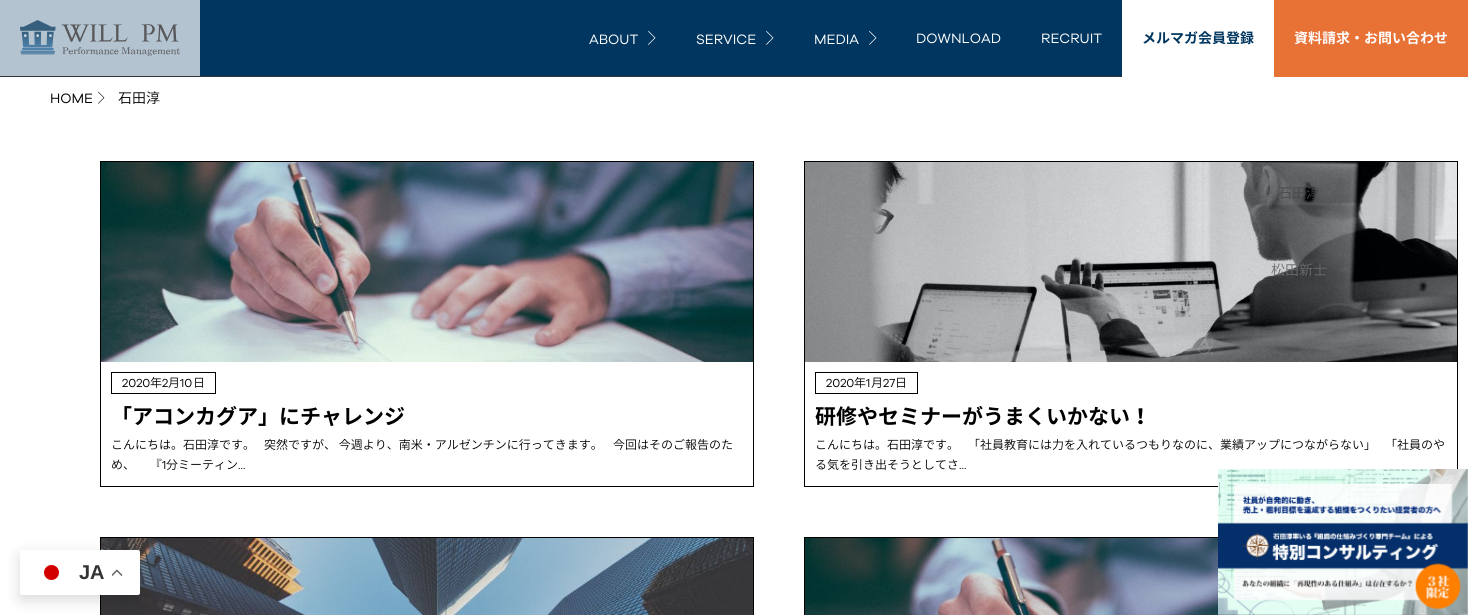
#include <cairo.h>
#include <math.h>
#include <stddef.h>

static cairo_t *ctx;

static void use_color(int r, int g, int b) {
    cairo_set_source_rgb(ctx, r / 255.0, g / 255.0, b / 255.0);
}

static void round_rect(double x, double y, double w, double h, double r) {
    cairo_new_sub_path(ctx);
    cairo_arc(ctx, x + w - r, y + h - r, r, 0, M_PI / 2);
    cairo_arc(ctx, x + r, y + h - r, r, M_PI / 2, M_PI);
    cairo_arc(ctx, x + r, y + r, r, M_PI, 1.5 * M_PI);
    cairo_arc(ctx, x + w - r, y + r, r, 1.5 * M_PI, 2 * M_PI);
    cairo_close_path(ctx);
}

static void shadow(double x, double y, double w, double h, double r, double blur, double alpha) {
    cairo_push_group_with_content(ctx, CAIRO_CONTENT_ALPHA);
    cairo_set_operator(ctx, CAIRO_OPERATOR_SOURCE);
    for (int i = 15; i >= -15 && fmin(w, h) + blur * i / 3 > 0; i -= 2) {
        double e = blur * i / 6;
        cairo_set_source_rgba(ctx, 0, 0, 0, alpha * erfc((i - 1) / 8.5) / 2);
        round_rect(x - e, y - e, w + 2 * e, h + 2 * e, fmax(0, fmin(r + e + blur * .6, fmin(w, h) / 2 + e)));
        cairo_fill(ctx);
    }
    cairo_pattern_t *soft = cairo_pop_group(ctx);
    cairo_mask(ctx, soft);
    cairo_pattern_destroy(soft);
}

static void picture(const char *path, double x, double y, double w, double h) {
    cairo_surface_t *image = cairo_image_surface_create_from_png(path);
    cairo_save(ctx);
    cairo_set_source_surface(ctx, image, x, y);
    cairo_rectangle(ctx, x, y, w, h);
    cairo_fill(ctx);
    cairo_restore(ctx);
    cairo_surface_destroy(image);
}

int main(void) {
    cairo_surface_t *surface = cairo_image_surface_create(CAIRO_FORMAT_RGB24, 1468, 615);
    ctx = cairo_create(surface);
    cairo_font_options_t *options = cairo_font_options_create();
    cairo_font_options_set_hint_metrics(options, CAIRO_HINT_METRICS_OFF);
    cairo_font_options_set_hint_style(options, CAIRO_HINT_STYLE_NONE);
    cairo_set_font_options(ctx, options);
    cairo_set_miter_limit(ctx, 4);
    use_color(255, 255, 255);
    cairo_paint(ctx);
    use_color(0, 54, 95);
    cairo_rectangle(ctx, 200, 0, 922, 76);
    cairo_fill(ctx);
    use_color(51, 51, 51);
    cairo_rectangle(ctx, 0, 76, 1122, 1);
    cairo_fill(ctx);
    use_color(179, 195, 207);
    cairo_rectangle(ctx, 0, 0, 200, 76);
    cairo_fill(ctx);
    picture("img1.png", 20, 20, 160, 36);
    cairo_select_font_face(ctx, "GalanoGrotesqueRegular", CAIRO_FONT_SLANT_NORMAL, CAIRO_FONT_WEIGHT_NORMAL);
    cairo_set_font_size(ctx, 14);
    use_color(255, 255, 255);
    cairo_move_to(ctx, 916, 43);
    cairo_show_text(ctx, "DOWNLOAD");
    cairo_move_to(ctx, 1041, 43);
    cairo_show_text(ctx, "RECRUIT");
    cairo_select_font_face(ctx, "Noto Sans JP", CAIRO_FONT_SLANT_NORMAL, CAIRO_FONT_WEIGHT_BOLD);
    use_color(0, 54, 95);
    cairo_move_to(ctx, 1142, 43);
    cairo_show_text(ctx, "メルマガ会員登録");
    use_color(232, 113, 54);
    cairo_rectangle(ctx, 1274, 0, 194, 77);
    cairo_fill(ctx);
    use_color(255, 255, 255);
    cairo_move_to(ctx, 1294, 43);
    cairo_show_text(ctx, "資料請求・お問い合わせ");
    cairo_select_font_face(ctx, "GalanoGrotesqueRegular", CAIRO_FONT_SLANT_NORMAL, CAIRO_FONT_WEIGHT_NORMAL);
    cairo_move_to(ctx, 589, 44);
    cairo_show_text(ctx, "ABOUT");
    picture("img2.png", 648, 31, 8, 14);
    cairo_rectangle(ctx, 804.5, 161.5, 653, 325);
    use_color(0, 0, 0);
    cairo_set_line_width(ctx, 1);
    cairo_stroke(ctx);
    picture("img5.png", 805, 162, 652, 200);
    cairo_select_font_face(ctx, "Noto Sans JP Light", CAIRO_FONT_SLANT_NORMAL, CAIRO_FONT_WEIGHT_NORMAL);
    use_color(73, 74, 76);
    cairo_move_to(ctx, 1278, 198);
    cairo_show_text(ctx, "石田淳");
    use_color(106, 107, 109);
    cairo_move_to(ctx, 1271, 275);
    cairo_show_text(ctx, "松田新士");
    cairo_select_font_face(ctx, "GalanoGrotesqueRegular", CAIRO_FONT_SLANT_NORMAL, CAIRO_FONT_WEIGHT_NORMAL);
    use_color(255, 255, 255);
    cairo_move_to(ctx, 696, 44);
    cairo_show_text(ctx, "SERVICE");
    picture("img2.png", 766, 31, 8, 14);
    cairo_move_to(ctx, 814, 44);
    cairo_show_text(ctx, "MEDIA");
    picture("img2.png", 869, 31, 8, 14);
    use_color(0, 0, 0);
    cairo_move_to(ctx, 50, 103);
    cairo_show_text(ctx, "HOME");
    picture("img3.png", 98, 91, 7, 13);
    cairo_select_font_face(ctx, "Noto Sans JP Light", CAIRO_FONT_SLANT_NORMAL, CAIRO_FONT_WEIGHT_NORMAL);
    cairo_move_to(ctx, 118, 103);
    cairo_show_text(ctx, "石田淳");
    cairo_rectangle(ctx, 100.5, 161.5, 653, 325);
    cairo_stroke(ctx);
    picture("img4.png", 101, 162, 652, 200);
    cairo_rectangle(ctx, 111.5, 372.5, 104, 21);
    cairo_stroke(ctx);
    cairo_select_font_face(ctx, "GalanoGrotesqueRegular", CAIRO_FONT_SLANT_NORMAL, CAIRO_FONT_WEIGHT_NORMAL);
    cairo_set_font_size(ctx, 12);
    cairo_move_to(ctx, 122, 387);
    cairo_show_text(ctx, "2020");
    cairo_select_font_face(ctx, "Noto Sans JP Light", CAIRO_FONT_SLANT_NORMAL, CAIRO_FONT_WEIGHT_NORMAL);
    cairo_move_to(ctx, 150, 387);
    cairo_show_text(ctx, "年");
    cairo_select_font_face(ctx, "GalanoGrotesqueRegular", CAIRO_FONT_SLANT_NORMAL, CAIRO_FONT_WEIGHT_NORMAL);
    cairo_move_to(ctx, 162, 387);
    cairo_show_text(ctx, "2");
    cairo_select_font_face(ctx, "Noto Sans JP Light", CAIRO_FONT_SLANT_NORMAL, CAIRO_FONT_WEIGHT_NORMAL);
    cairo_move_to(ctx, 168, 387);
    cairo_show_text(ctx, "月");
    cairo_select_font_face(ctx, "GalanoGrotesqueRegular", CAIRO_FONT_SLANT_NORMAL, CAIRO_FONT_WEIGHT_NORMAL);
    cairo_move_to(ctx, 180, 387);
    cairo_show_text(ctx, "10");
    cairo_select_font_face(ctx, "Noto Sans JP Light", CAIRO_FONT_SLANT_NORMAL, CAIRO_FONT_WEIGHT_NORMAL);
    cairo_move_to(ctx, 193, 387);
    cairo_show_text(ctx, "日");
    cairo_select_font_face(ctx, "Noto Sans JP", CAIRO_FONT_SLANT_NORMAL, CAIRO_FONT_WEIGHT_BOLD);
    cairo_set_font_size(ctx, 21);
    cairo_move_to(ctx, 111, 424);
    cairo_show_text(ctx, "「アコンカグア」にチャレンジ");
    cairo_select_font_face(ctx, "Noto Sans JP Light", CAIRO_FONT_SLANT_NORMAL, CAIRO_FONT_WEIGHT_NORMAL);
    cairo_set_font_size(ctx, 12);
    cairo_move_to(ctx, 111, 449);
    cairo_show_text(ctx, "こんにちは。石田淳です。");
    cairo_move_to(ctx, 264, 449);
    cairo_show_text(ctx, "突然ですが、 今週より、南米・アルゼンチンに行ってきます。");
    cairo_move_to(ctx, 613, 449);
    cairo_show_text(ctx, "今回はそのご報告のた");
    cairo_move_to(ctx, 111, 469);
    cairo_show_text(ctx, "め、 　『");
    cairo_select_font_face(ctx, "GalanoGrotesqueRegular", CAIRO_FONT_SLANT_NORMAL, CAIRO_FONT_WEIGHT_NORMAL);
    cairo_move_to(ctx, 162, 469);
    cairo_show_text(ctx, "1");
    cairo_select_font_face(ctx, "Noto Sans JP Light", CAIRO_FONT_SLANT_NORMAL, CAIRO_FONT_WEIGHT_NORMAL);
    cairo_move_to(ctx, 166, 469);
    cairo_show_text(ctx, "分ミーティン");
    cairo_select_font_face(ctx, "GalanoGrotesqueRegular", CAIRO_FONT_SLANT_NORMAL, CAIRO_FONT_WEIGHT_NORMAL);
    cairo_move_to(ctx, 238, 469);
    cairo_show_text(ctx, "...");
    cairo_rectangle(ctx, 815.5, 372.5, 102, 21);
    cairo_stroke(ctx);
    cairo_move_to(ctx, 826, 387);
    cairo_show_text(ctx, "2020");
    cairo_select_font_face(ctx, "Noto Sans JP Light", CAIRO_FONT_SLANT_NORMAL, CAIRO_FONT_WEIGHT_NORMAL);
    cairo_move_to(ctx, 854, 387);
    cairo_show_text(ctx, "年");
    cairo_select_font_face(ctx, "GalanoGrotesqueRegular", CAIRO_FONT_SLANT_NORMAL, CAIRO_FONT_WEIGHT_NORMAL);
    cairo_move_to(ctx, 866, 387);
    cairo_show_text(ctx, "1");
    cairo_select_font_face(ctx, "Noto Sans JP Light", CAIRO_FONT_SLANT_NORMAL, CAIRO_FONT_WEIGHT_NORMAL);
    cairo_move_to(ctx, 871, 387);
    cairo_show_text(ctx, "月");
    cairo_select_font_face(ctx, "GalanoGrotesqueRegular", CAIRO_FONT_SLANT_NORMAL, CAIRO_FONT_WEIGHT_NORMAL);
    cairo_move_to(ctx, 883, 387);
    cairo_show_text(ctx, "27");
    cairo_select_font_face(ctx, "Noto Sans JP Light", CAIRO_FONT_SLANT_NORMAL, CAIRO_FONT_WEIGHT_NORMAL);
    cairo_move_to(ctx, 895, 387);
    cairo_show_text(ctx, "日");
    cairo_select_font_face(ctx, "Noto Sans JP", CAIRO_FONT_SLANT_NORMAL, CAIRO_FONT_WEIGHT_BOLD);
    cairo_set_font_size(ctx, 21);
    cairo_move_to(ctx, 815, 424);
    cairo_show_text(ctx, "研修やセミナーがうまくいかない！");
    cairo_select_font_face(ctx, "Noto Sans JP Light", CAIRO_FONT_SLANT_NORMAL, CAIRO_FONT_WEIGHT_NORMAL);
    cairo_set_font_size(ctx, 12);
    cairo_move_to(ctx, 815, 449);
    cairo_show_text(ctx, "こんにちは。石田淳です。");
    cairo_move_to(ctx, 968, 449);
    cairo_show_text(ctx, "「社員教育には力を入れているつもりなのに、業績アップにつながらない」");
    cairo_move_to(ctx, 1385, 449);
    cairo_show_text(ctx, "「社員のや");
    cairo_move_to(ctx, 815, 469);
    cairo_show_text(ctx, "る気を引き出そうとしてさ");
    cairo_select_font_face(ctx, "GalanoGrotesqueRegular", CAIRO_FONT_SLANT_NORMAL, CAIRO_FONT_WEIGHT_NORMAL);
    cairo_move_to(ctx, 959, 469);
    cairo_show_text(ctx, "...");
    cairo_rectangle(ctx, 100.5, 537.5, 653, 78);
    cairo_stroke(ctx);
    picture("img6.png", 101, 538, 652, 77);
    cairo_rectangle(ctx, 804.5, 537.5, 653, 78);
    cairo_stroke(ctx);
    picture("img7.png", 805, 538, 652, 77);
    use_color(0, 0, 0);
    shadow(20, 555, 120, 45, 2, 7.5, 0.15);
    use_color(255, 255, 255);
    round_rect(20, 550, 120, 45, 2);
    cairo_fill(ctx);
    use_color(211, 0, 0);
    cairo_arc(ctx, 51.5, 572.5, 7.5, 0, 2 * M_PI);
    cairo_fill(ctx);
    cairo_select_font_face(ctx, "Liberation Sans", CAIRO_FONT_SLANT_NORMAL, CAIRO_FONT_WEIGHT_BOLD);
    cairo_set_font_size(ctx, 20);
    use_color(51, 51, 51);
    cairo_move_to(ctx, 79, 579);
    cairo_show_text(ctx, "JA");
    picture("img8.png", 112, 569, 11, 7);
    picture("img9.png", 1218, 469, 250, 146);
    cairo_surface_write_to_png(surface, "result.png");
    cairo_font_options_destroy(options);
    cairo_destroy(ctx);
    cairo_surface_destroy(surface);
    return 0;
}
